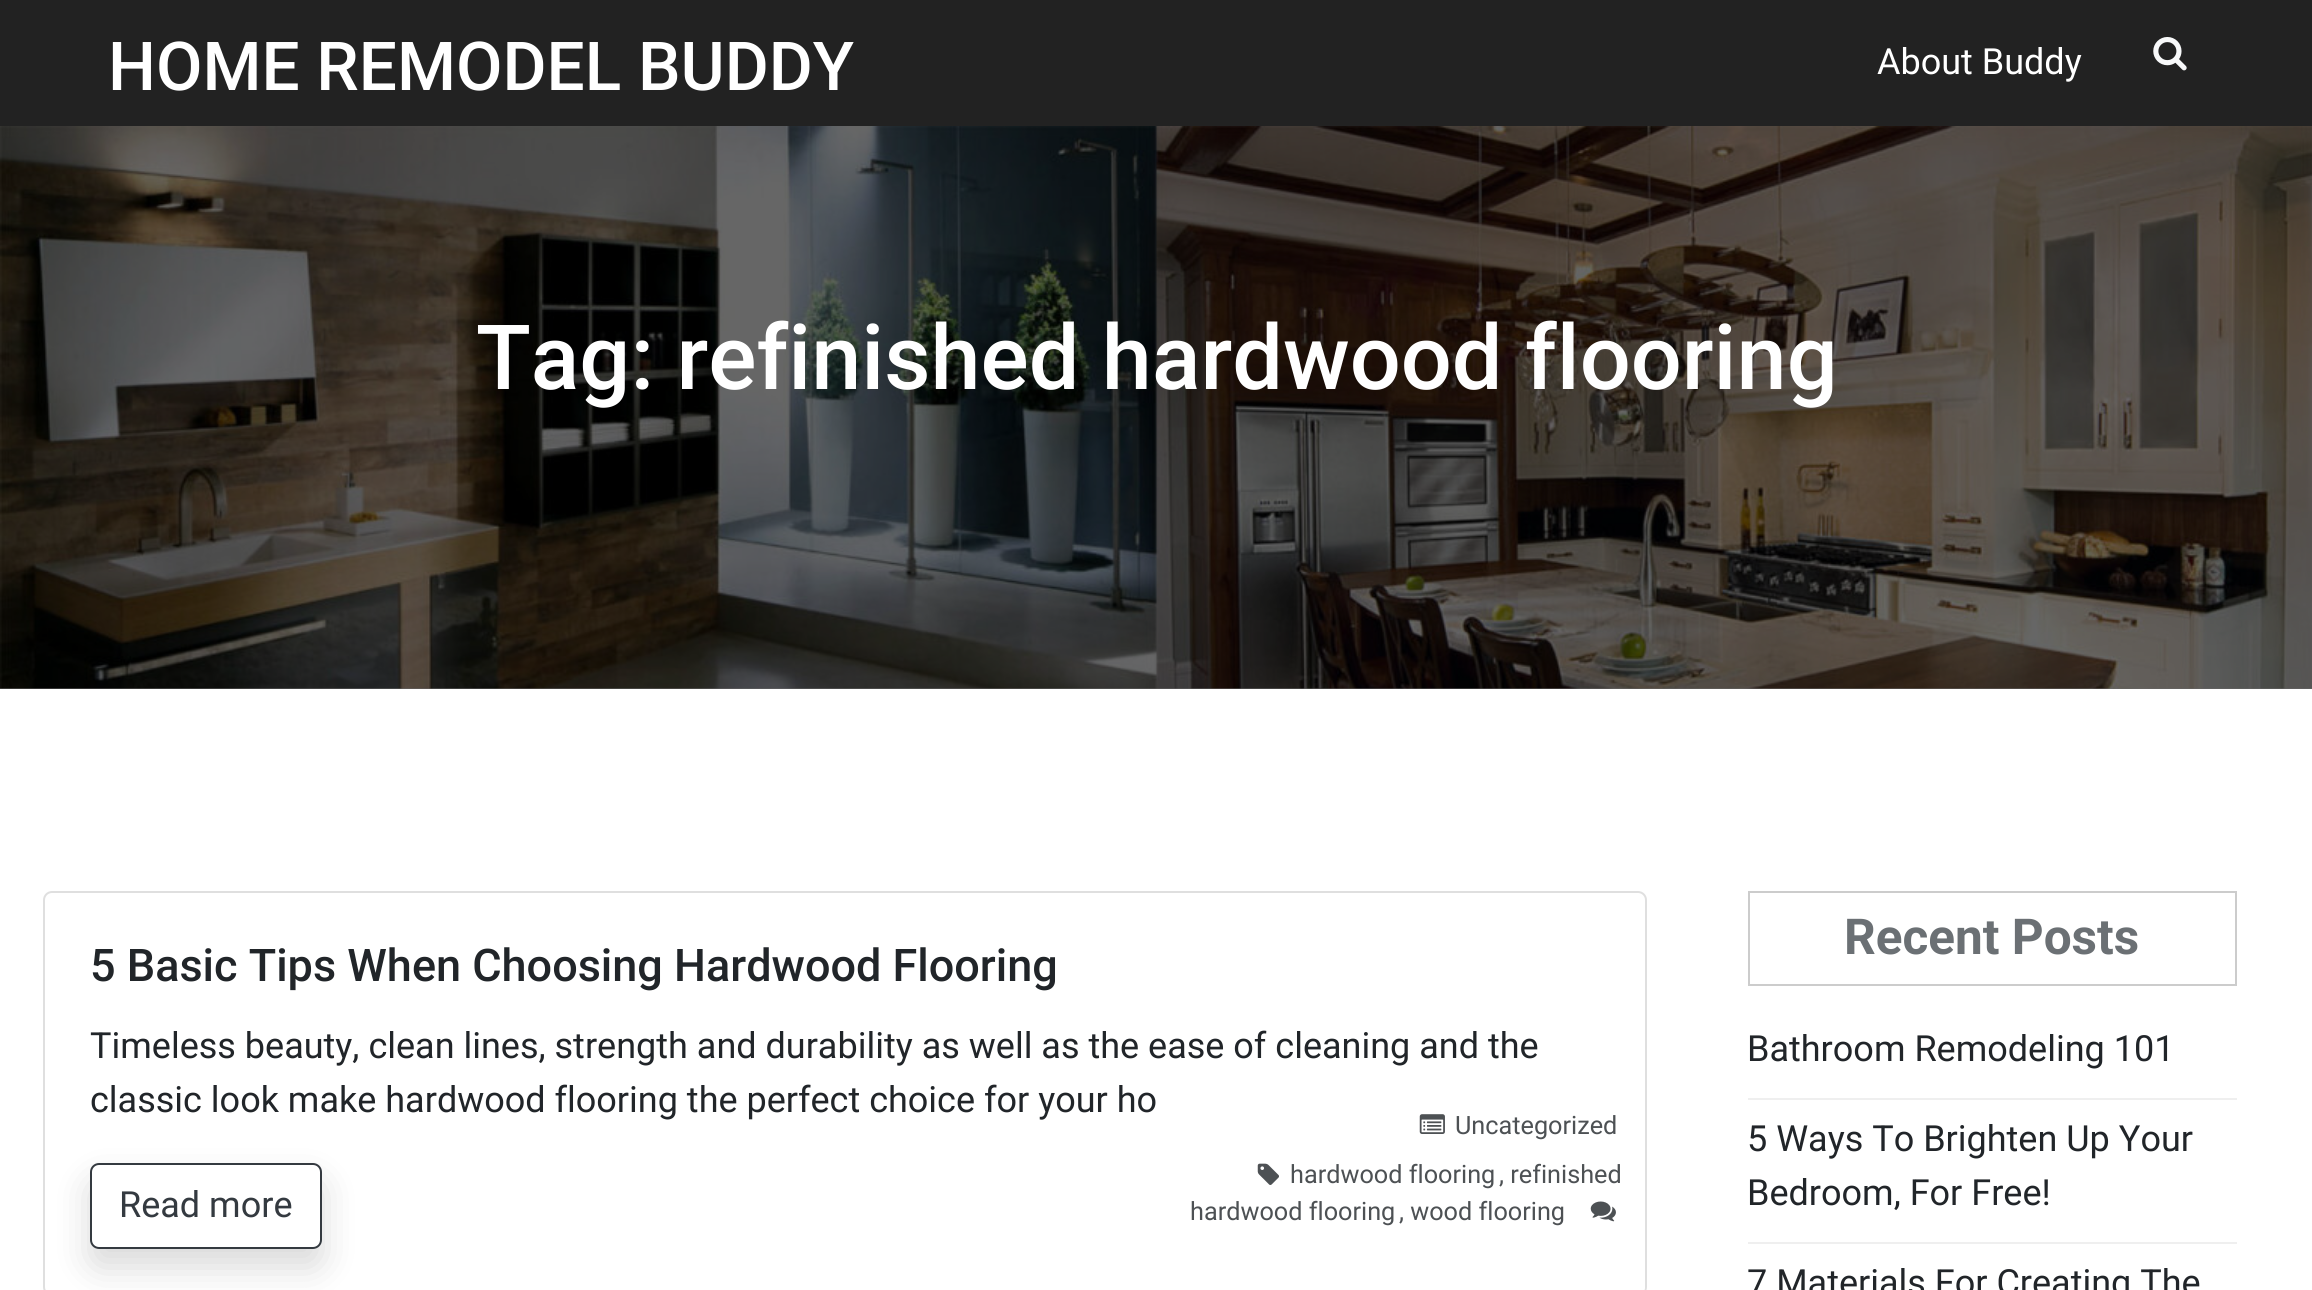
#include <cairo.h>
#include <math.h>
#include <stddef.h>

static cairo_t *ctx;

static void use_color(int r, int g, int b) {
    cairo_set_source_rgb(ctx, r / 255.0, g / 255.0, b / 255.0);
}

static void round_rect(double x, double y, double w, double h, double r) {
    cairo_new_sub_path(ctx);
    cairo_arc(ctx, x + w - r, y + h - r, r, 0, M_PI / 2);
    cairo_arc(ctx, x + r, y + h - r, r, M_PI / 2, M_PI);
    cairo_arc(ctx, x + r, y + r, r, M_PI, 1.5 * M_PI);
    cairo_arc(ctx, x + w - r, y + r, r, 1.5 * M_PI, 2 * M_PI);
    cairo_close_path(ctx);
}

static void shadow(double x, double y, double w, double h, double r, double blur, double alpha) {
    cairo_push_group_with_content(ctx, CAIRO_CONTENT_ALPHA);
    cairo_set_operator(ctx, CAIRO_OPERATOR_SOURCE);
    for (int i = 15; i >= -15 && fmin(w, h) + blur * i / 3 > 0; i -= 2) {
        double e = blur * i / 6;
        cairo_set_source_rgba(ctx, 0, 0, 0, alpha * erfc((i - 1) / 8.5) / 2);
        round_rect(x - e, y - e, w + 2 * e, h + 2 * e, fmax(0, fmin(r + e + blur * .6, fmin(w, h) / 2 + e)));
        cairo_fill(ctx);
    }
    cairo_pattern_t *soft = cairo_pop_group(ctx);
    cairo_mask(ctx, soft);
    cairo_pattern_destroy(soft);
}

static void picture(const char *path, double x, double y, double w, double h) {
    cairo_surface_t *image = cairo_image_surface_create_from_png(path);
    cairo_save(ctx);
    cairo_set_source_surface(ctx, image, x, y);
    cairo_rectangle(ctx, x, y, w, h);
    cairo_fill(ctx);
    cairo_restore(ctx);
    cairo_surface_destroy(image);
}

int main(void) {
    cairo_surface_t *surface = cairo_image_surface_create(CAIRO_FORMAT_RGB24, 2312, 1290);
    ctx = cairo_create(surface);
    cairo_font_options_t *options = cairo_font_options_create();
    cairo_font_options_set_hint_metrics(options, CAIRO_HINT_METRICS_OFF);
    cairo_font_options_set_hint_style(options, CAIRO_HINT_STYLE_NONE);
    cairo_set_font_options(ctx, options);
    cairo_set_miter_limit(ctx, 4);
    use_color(255, 255, 255);
    cairo_paint(ctx);
    use_color(102, 102, 102);
    cairo_rectangle(ctx, 0, 688, 2312, 1);
    cairo_fill(ctx);
    use_color(34, 34, 34);
    cairo_rectangle(ctx, 0, 0, 2312, 126);
    cairo_fill(ctx);
    cairo_select_font_face(ctx, "Roboto Medium", CAIRO_FONT_SLANT_NORMAL, CAIRO_FONT_WEIGHT_NORMAL);
    cairo_set_font_size(ctx, 67.5);
    use_color(255, 255, 255);
    cairo_move_to(ctx, 108, 90);
    cairo_show_text(ctx, "HOME REMODEL BUDDY");
    cairo_select_font_face(ctx, "Roboto", CAIRO_FONT_SLANT_NORMAL, CAIRO_FONT_WEIGHT_NORMAL);
    cairo_set_font_size(ctx, 36);
    cairo_move_to(ctx, 1877, 74);
    cairo_show_text(ctx, "About Buddy");
    picture("img1.png", 2153, 37, 34, 34);
    picture("img2.png", 0, 126, 2312, 563);
    cairo_select_font_face(ctx, "Roboto Medium", CAIRO_FONT_SLANT_NORMAL, CAIRO_FONT_WEIGHT_NORMAL);
    cairo_set_font_size(ctx, 90);
    cairo_move_to(ctx, 476, 389);
    cairo_show_text(ctx, "Tag: refinished hardwood flooring");
    round_rect(44, 892, 1602, 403, 8);
    use_color(223, 223, 223);
    cairo_stroke(ctx);
    cairo_set_font_size(ctx, 45);
    use_color(33, 37, 41);
    cairo_move_to(ctx, 90, 981);
    cairo_show_text(ctx, "5 Basic Tips When Choosing Hardwood Flooring");
    cairo_select_font_face(ctx, "Roboto", CAIRO_FONT_SLANT_NORMAL, CAIRO_FONT_WEIGHT_NORMAL);
    cairo_set_font_size(ctx, 36);
    cairo_move_to(ctx, 90, 1058);
    cairo_show_text(ctx, "Timeless beauty, clean lines, strength and durability as well as the ease of cleaning and the");
    cairo_move_to(ctx, 90, 1112);
    cairo_show_text(ctx, "classic look make hardwood flooring the perfect choice for your ho");
    cairo_save(ctx);
    cairo_set_fill_rule(ctx, CAIRO_FILL_RULE_EVEN_ODD);
    cairo_new_path(ctx);
    cairo_move_to(ctx, 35, 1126);
    cairo_line_to(ctx, 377, 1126);
    cairo_line_to(ctx, 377, 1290);
    cairo_line_to(ctx, 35, 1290);
    cairo_close_path(ctx);
    cairo_move_to(ctx, 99, 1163);
    cairo_line_to(ctx, 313, 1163);
    cairo_curve_to(ctx, 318, 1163, 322, 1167, 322, 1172);
    cairo_line_to(ctx, 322, 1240);
    cairo_curve_to(ctx, 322, 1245, 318, 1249, 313, 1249);
    cairo_line_to(ctx, 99, 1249);
    cairo_curve_to(ctx, 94, 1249, 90, 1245, 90, 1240);
    cairo_line_to(ctx, 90, 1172);
    cairo_curve_to(ctx, 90, 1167, 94, 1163, 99, 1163);
    cairo_close_path(ctx);
    cairo_clip(ctx);
    use_color(0, 0, 0);
    shadow(90, 1181, 232, 86, 9, 18, 0.15);
    cairo_restore(ctx);
    round_rect(91, 1164, 230, 84, 8);
    use_color(52, 58, 64);
    cairo_stroke(ctx);
    cairo_move_to(ctx, 119, 1217);
    cairo_show_text(ctx, "Read more");
    cairo_set_source_rgba(ctx, 1, 1, 1, 0.8);
    cairo_new_path(ctx);
    cairo_move_to(ctx, 1163, 1076);
    cairo_line_to(ctx, 1645, 1076);
    cairo_line_to(ctx, 1645, 1287);
    cairo_curve_to(ctx, 1645, 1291, 1642, 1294, 1638, 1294);
    cairo_line_to(ctx, 1170, 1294);
    cairo_curve_to(ctx, 1166, 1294, 1163, 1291, 1163, 1287);
    cairo_close_path(ctx);
    cairo_fill(ctx);
    picture("img3.png", 1419, 1114, 26, 20);
    cairo_set_font_size(ctx, 25.25);
    use_color(77, 81, 84);
    cairo_move_to(ctx, 1455, 1134);
    cairo_show_text(ctx, "Uncategorized");
    picture("img4.png", 1257, 1163, 22, 22);
    cairo_move_to(ctx, 1290, 1183);
    cairo_show_text(ctx, "hardwood flooring");
    cairo_move_to(ctx, 1499, 1183);
    cairo_show_text(ctx, ", refinished");
    cairo_move_to(ctx, 1190, 1220);
    cairo_show_text(ctx, "hardwood flooring");
    cairo_move_to(ctx, 1399, 1220);
    cairo_show_text(ctx, ", wood flooring");
    picture("img5.png", 1590, 1201, 26, 21);
    cairo_rectangle(ctx, 1749, 892, 487, 93);
    use_color(204, 204, 204);
    cairo_stroke(ctx);
    cairo_select_font_face(ctx, "Roboto", CAIRO_FONT_SLANT_NORMAL, CAIRO_FONT_WEIGHT_BOLD);
    cairo_set_font_size(ctx, 49.5);
    use_color(107, 112, 116);
    cairo_move_to(ctx, 1844, 954);
    cairo_show_text(ctx, "Recent Posts");
    use_color(239, 239, 239);
    cairo_rectangle(ctx, 1748, 1098, 489, 2);
    cairo_fill(ctx);
    cairo_select_font_face(ctx, "Roboto", CAIRO_FONT_SLANT_NORMAL, CAIRO_FONT_WEIGHT_NORMAL);
    cairo_set_font_size(ctx, 36);
    use_color(33, 37, 41);
    cairo_move_to(ctx, 1747, 1061);
    cairo_show_text(ctx, "Bathroom Remodeling 101");
    use_color(239, 239, 239);
    cairo_rectangle(ctx, 1748, 1242, 489, 2);
    cairo_fill(ctx);
    use_color(33, 37, 41);
    cairo_move_to(ctx, 1747, 1151);
    cairo_show_text(ctx, "5 Ways To Brighten Up Your");
    cairo_move_to(ctx, 1747, 1205);
    cairo_show_text(ctx, "Bedroom, For Free!");
    cairo_move_to(ctx, 1747, 1295);
    cairo_show_text(ctx, "7 Materials For Creating The");
    cairo_surface_write_to_png(surface, "result.png");
    cairo_font_options_destroy(options);
    cairo_destroy(ctx);
    cairo_surface_destroy(surface);
    return 0;
}
